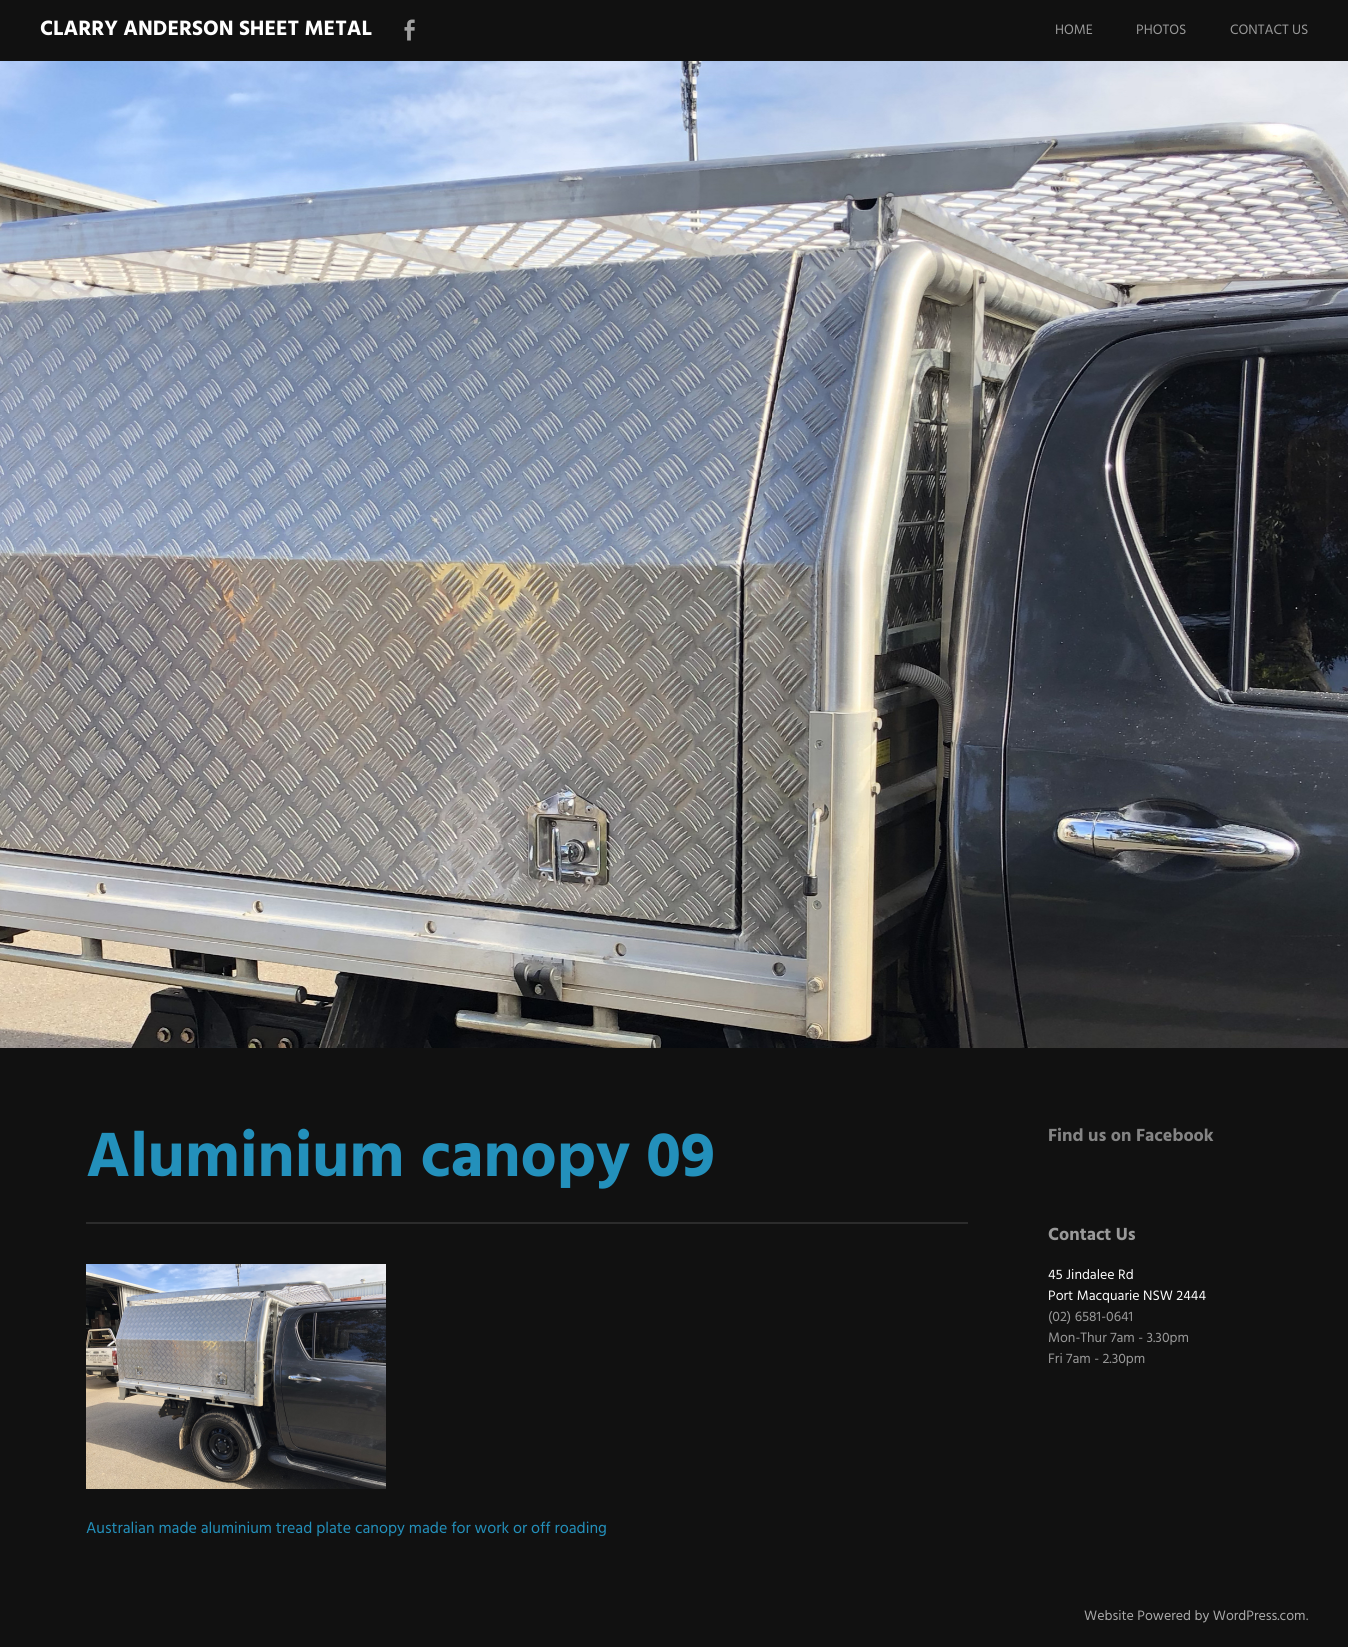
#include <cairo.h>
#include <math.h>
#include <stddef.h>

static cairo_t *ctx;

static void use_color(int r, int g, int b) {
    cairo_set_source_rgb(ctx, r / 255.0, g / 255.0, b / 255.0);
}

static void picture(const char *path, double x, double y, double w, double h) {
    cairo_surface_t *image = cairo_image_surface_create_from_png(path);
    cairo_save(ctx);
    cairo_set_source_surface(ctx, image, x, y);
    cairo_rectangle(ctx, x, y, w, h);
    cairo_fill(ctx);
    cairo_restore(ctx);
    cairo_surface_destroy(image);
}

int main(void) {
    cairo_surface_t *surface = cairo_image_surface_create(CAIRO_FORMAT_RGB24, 1348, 1647);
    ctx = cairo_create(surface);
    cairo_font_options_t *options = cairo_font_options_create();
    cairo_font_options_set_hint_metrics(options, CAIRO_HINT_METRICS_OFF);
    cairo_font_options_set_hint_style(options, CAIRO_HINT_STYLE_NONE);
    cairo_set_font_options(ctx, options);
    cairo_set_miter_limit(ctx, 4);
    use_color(17, 17, 17);
    cairo_paint(ctx);
    cairo_select_font_face(ctx, "Hind", CAIRO_FONT_SLANT_NORMAL, CAIRO_FONT_WEIGHT_BOLD);
    cairo_set_font_size(ctx, 21.3);
    use_color(255, 255, 255);
    cairo_move_to(ctx, 40, 35);
    cairo_show_text(ctx, "CLARRY ANDERSON SHEET METAL");
    picture("img1.png", 404, 19, 11, 22);
    cairo_select_font_face(ctx, "Hind", CAIRO_FONT_SLANT_NORMAL, CAIRO_FONT_WEIGHT_NORMAL);
    cairo_set_font_size(ctx, 14);
    use_color(153, 153, 153);
    cairo_move_to(ctx, 1055, 34);
    cairo_show_text(ctx, "HOME");
    cairo_move_to(ctx, 1136, 34);
    cairo_show_text(ctx, "PHOTOS");
    cairo_move_to(ctx, 1230, 34);
    cairo_show_text(ctx, "CONTACT US");
    picture("img2.png", 0, 61, 1348, 987);
    use_color(44, 44, 44);
    cairo_rectangle(ctx, 86, 1222, 882, 2);
    cairo_fill(ctx);
    cairo_select_font_face(ctx, "Hind", CAIRO_FONT_SLANT_NORMAL, CAIRO_FONT_WEIGHT_BOLD);
    cairo_set_font_size(ctx, 64);
    use_color(35, 144, 187);
    cairo_move_to(ctx, 86, 1176);
    cairo_show_text(ctx, "Aluminium canopy 09");
    picture("img3.png", 86, 1264, 300, 225);
    cairo_select_font_face(ctx, "Hind", CAIRO_FONT_SLANT_NORMAL, CAIRO_FONT_WEIGHT_NORMAL);
    cairo_set_font_size(ctx, 16);
    cairo_move_to(ctx, 86, 1533);
    cairo_show_text(ctx, "Australian made aluminium tread plate canopy made for work or off roading");
    cairo_select_font_face(ctx, "Hind", CAIRO_FONT_SLANT_NORMAL, CAIRO_FONT_WEIGHT_BOLD);
    cairo_set_font_size(ctx, 18);
    use_color(132, 132, 132);
    cairo_move_to(ctx, 1048, 1141);
    cairo_show_text(ctx, "Find us on Facebook");
    use_color(153, 153, 153);
    cairo_move_to(ctx, 1048, 1240);
    cairo_show_text(ctx, "Contact Us");
    cairo_select_font_face(ctx, "Hind", CAIRO_FONT_SLANT_NORMAL, CAIRO_FONT_WEIGHT_NORMAL);
    cairo_set_font_size(ctx, 14);
    use_color(255, 255, 255);
    cairo_move_to(ctx, 1048, 1279);
    cairo_show_text(ctx, "45 Jindalee Rd");
    cairo_move_to(ctx, 1048, 1300);
    cairo_show_text(ctx, "Port Macquarie NSW 2444");
    use_color(153, 153, 153);
    cairo_move_to(ctx, 1048, 1321);
    cairo_show_text(ctx, "(02) 6581-0641");
    cairo_move_to(ctx, 1048, 1342);
    cairo_show_text(ctx, "Mon-Thur 7am - 3.30pm");
    cairo_move_to(ctx, 1048, 1363);
    cairo_show_text(ctx, "Fri 7am - 2.30pm");
    use_color(170, 170, 170);
    cairo_move_to(ctx, 1084, 1620);
    cairo_show_text(ctx, "Website Powered by WordPress.com");
    use_color(153, 153, 153);
    cairo_move_to(ctx, 1306, 1620);
    cairo_show_text(ctx, ".");
    cairo_surface_write_to_png(surface, "result.png");
    cairo_font_options_destroy(options);
    cairo_destroy(ctx);
    cairo_surface_destroy(surface);
    return 0;
}
